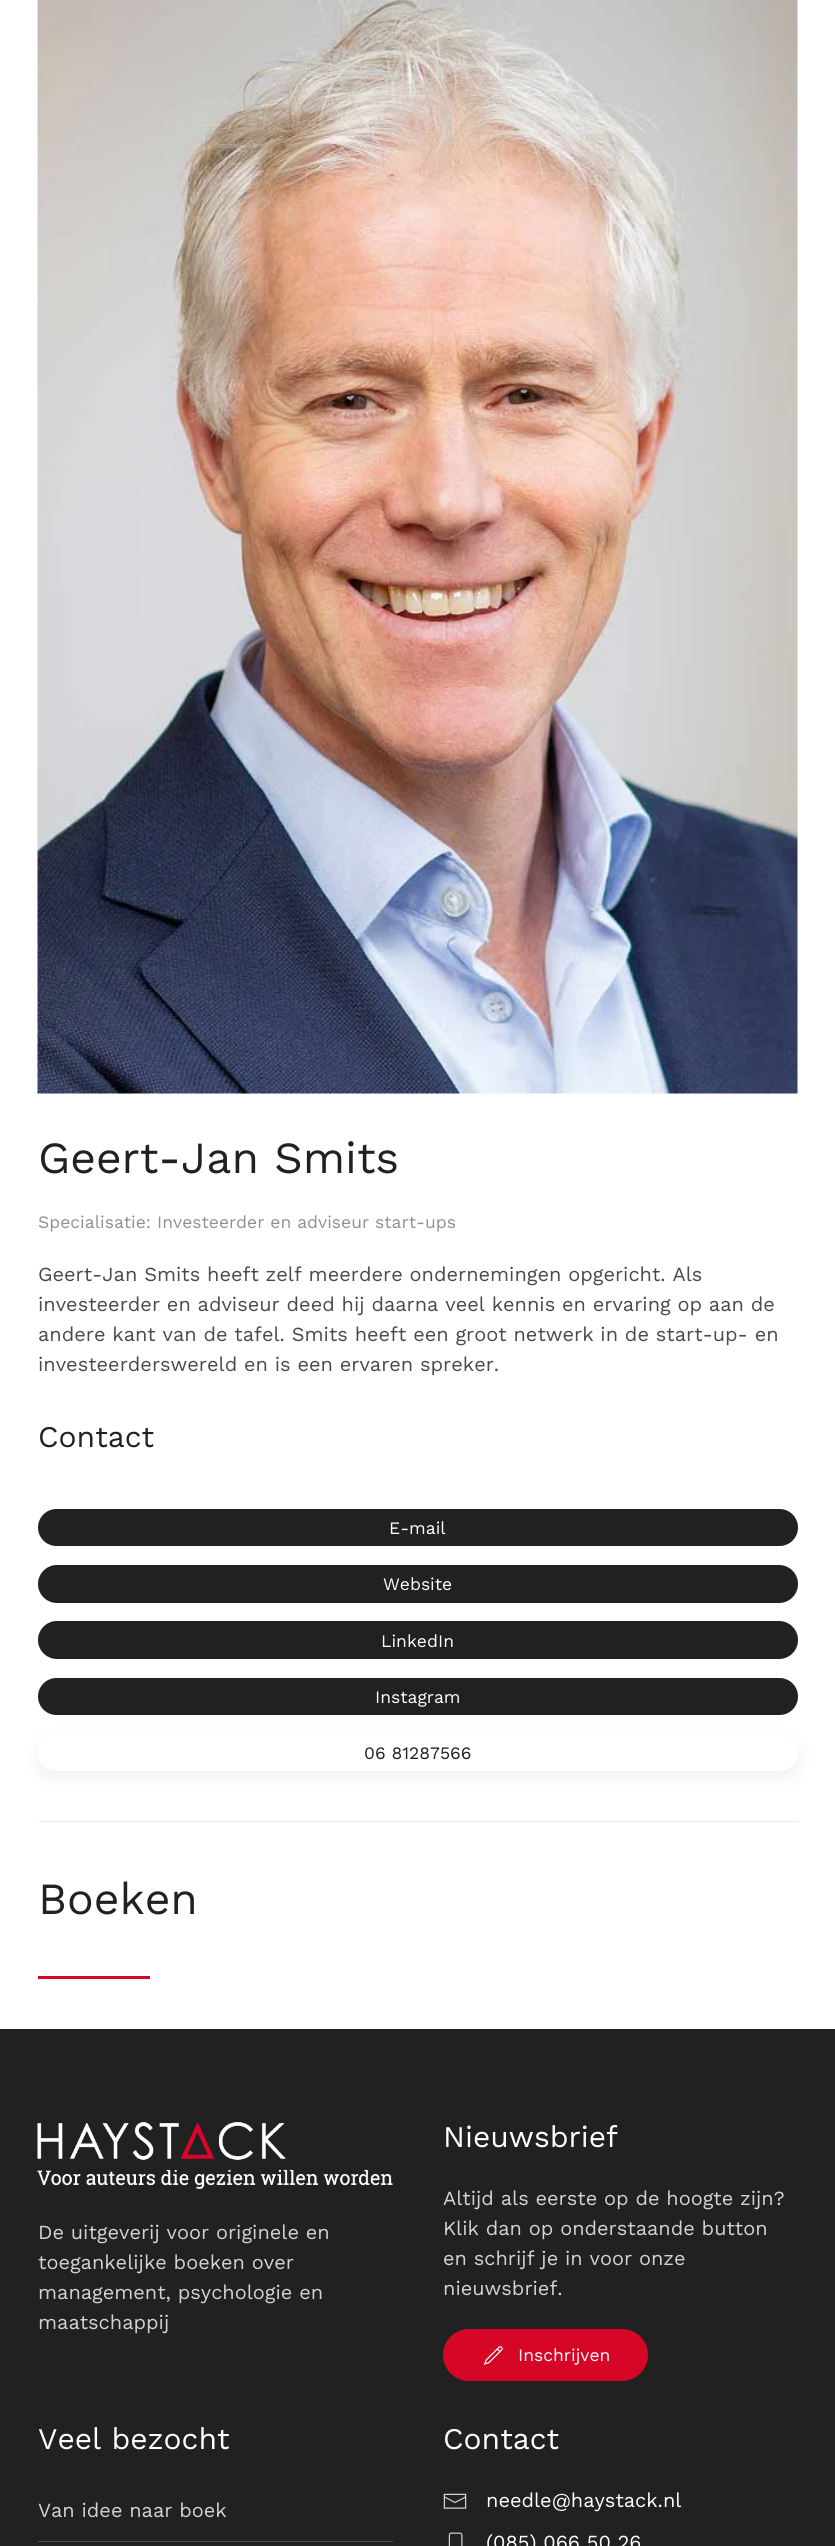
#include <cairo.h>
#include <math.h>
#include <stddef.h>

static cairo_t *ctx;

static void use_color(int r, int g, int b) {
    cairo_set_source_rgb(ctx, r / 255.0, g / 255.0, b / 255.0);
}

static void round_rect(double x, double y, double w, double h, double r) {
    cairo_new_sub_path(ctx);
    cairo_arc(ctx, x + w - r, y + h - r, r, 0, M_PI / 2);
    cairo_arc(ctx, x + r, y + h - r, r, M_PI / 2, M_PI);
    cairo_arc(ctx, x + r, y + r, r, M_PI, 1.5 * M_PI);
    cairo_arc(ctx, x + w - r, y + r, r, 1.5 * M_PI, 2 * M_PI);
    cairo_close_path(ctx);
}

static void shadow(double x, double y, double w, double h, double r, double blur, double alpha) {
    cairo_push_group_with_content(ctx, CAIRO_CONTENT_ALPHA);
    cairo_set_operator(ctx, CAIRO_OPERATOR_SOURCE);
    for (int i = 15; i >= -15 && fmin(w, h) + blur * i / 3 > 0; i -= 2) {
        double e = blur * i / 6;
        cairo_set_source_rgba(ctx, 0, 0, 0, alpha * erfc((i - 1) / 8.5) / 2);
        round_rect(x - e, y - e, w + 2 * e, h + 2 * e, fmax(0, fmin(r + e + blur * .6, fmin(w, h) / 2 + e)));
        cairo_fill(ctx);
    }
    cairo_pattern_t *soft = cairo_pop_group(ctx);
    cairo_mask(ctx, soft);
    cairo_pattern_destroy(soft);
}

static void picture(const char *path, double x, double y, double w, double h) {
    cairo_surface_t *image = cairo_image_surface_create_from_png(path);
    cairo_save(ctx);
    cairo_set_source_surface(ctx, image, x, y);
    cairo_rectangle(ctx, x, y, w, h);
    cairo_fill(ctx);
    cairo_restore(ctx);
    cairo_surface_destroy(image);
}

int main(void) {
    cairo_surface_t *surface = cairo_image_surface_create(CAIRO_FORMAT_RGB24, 835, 2546);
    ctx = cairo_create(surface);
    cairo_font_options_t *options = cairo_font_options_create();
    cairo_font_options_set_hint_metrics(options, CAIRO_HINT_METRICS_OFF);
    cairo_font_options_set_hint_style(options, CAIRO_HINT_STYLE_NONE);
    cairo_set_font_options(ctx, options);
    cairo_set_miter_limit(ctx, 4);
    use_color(255, 255, 255);
    cairo_paint(ctx);
    picture("img1.png", 37, 0, 761, 1094);
    cairo_select_font_face(ctx, "Work Sans", CAIRO_FONT_SLANT_NORMAL, CAIRO_FONT_WEIGHT_NORMAL);
    cairo_set_font_size(ctx, 44.5);
    use_color(33, 33, 33);
    cairo_move_to(ctx, 38, 1173);
    cairo_show_text(ctx, "Geert-Jan Smits");
    cairo_set_font_size(ctx, 17.5);
    use_color(144, 144, 144);
    cairo_move_to(ctx, 38, 1228);
    cairo_show_text(ctx, "Specialisatie: Investeerder en adviseur start-ups");
    cairo_set_font_size(ctx, 20);
    use_color(74, 74, 74);
    cairo_move_to(ctx, 38, 1281);
    cairo_show_text(ctx, "Geert-Jan Smits heeft zelf meerdere ondernemingen opgericht. Als");
    cairo_move_to(ctx, 38, 1311);
    cairo_show_text(ctx, "investeerder en adviseur deed hij daarna veel kennis en ervaring op aan de");
    cairo_move_to(ctx, 38, 1341);
    cairo_show_text(ctx, "andere kant van de tafel. Smits heeft een groot netwerk in de start-up- en");
    cairo_move_to(ctx, 38, 1371);
    cairo_show_text(ctx, "investeerderswereld en is een ervaren spreker.");
    cairo_set_font_size(ctx, 30);
    use_color(33, 33, 33);
    cairo_move_to(ctx, 38, 1447);
    cairo_show_text(ctx, "Contact");
    round_rect(38, 1509, 760, 37, 18.5);
    cairo_fill(ctx);
    cairo_set_font_size(ctx, 17.5);
    use_color(255, 255, 255);
    cairo_move_to(ctx, 389, 1534);
    cairo_show_text(ctx, "E-mail");
    use_color(33, 33, 33);
    round_rect(38, 1565, 760, 38, 19);
    cairo_fill(ctx);
    use_color(255, 255, 255);
    cairo_move_to(ctx, 383, 1590);
    cairo_show_text(ctx, "Website");
    use_color(33, 33, 33);
    round_rect(38, 1621, 760, 38, 19);
    cairo_fill(ctx);
    use_color(255, 255, 255);
    cairo_move_to(ctx, 381, 1647);
    cairo_show_text(ctx, "LinkedIn");
    use_color(33, 33, 33);
    round_rect(38, 1678, 760, 37, 18.5);
    cairo_fill(ctx);
    use_color(255, 255, 255);
    cairo_move_to(ctx, 375, 1703);
    cairo_show_text(ctx, "Instagram");
    use_color(0, 0, 0);
    shadow(38, 1740, 760, 38, 19, 9.5, 0.06);
    use_color(255, 255, 255);
    round_rect(38, 1734, 760, 37, 18.5);
    cairo_fill(ctx);
    use_color(33, 33, 33);
    cairo_move_to(ctx, 364, 1759);
    cairo_show_text(ctx, "06 81287566");
    use_color(234, 234, 234);
    cairo_rectangle(ctx, 38, 1821, 760, 1);
    cairo_fill(ctx);
    cairo_set_font_size(ctx, 44.5);
    use_color(33, 33, 33);
    cairo_move_to(ctx, 38, 1914);
    cairo_show_text(ctx, "Boeken");
    use_color(214, 6, 39);
    cairo_rectangle(ctx, 38, 1976, 112, 3);
    cairo_fill(ctx);
    use_color(33, 33, 33);
    cairo_rectangle(ctx, 0, 2029, 835, 517);
    cairo_fill(ctx);
    picture("img2.png", 37, 2122, 356, 67);
    cairo_set_font_size(ctx, 20);
    use_color(211, 211, 211);
    cairo_move_to(ctx, 38, 2239);
    cairo_show_text(ctx, "De uitgeverij voor originele en");
    cairo_move_to(ctx, 38, 2269);
    cairo_show_text(ctx, "toegankelijke boeken over");
    cairo_move_to(ctx, 38, 2299);
    cairo_show_text(ctx, "management, psychologie en");
    cairo_move_to(ctx, 38, 2329);
    cairo_show_text(ctx, "maatschappij");
    cairo_set_font_size(ctx, 30);
    use_color(255, 255, 255);
    cairo_move_to(ctx, 443, 2147);
    cairo_show_text(ctx, "Nieuwsbrief");
    cairo_set_font_size(ctx, 20);
    use_color(211, 211, 211);
    cairo_move_to(ctx, 443, 2205);
    cairo_show_text(ctx, "Altijd als eerste op de hoogte zijn?");
    cairo_move_to(ctx, 443, 2235);
    cairo_show_text(ctx, "Klik dan op onderstaande button");
    cairo_move_to(ctx, 443, 2265);
    cairo_show_text(ctx, "en schrijf je in voor onze");
    cairo_move_to(ctx, 443, 2295);
    cairo_show_text(ctx, "nieuwsbrief.");
    use_color(214, 6, 39);
    round_rect(443, 2329, 205, 52, 26);
    cairo_fill(ctx);
    picture("img3.png", 483, 2346, 20, 19);
    cairo_set_font_size(ctx, 17.5);
    use_color(255, 255, 255);
    cairo_move_to(ctx, 518, 2361);
    cairo_show_text(ctx, "Inschrijven");
    cairo_set_font_size(ctx, 30);
    cairo_move_to(ctx, 38, 2449);
    cairo_show_text(ctx, "Veel bezocht");
    cairo_set_font_size(ctx, 20);
    use_color(211, 211, 211);
    cairo_move_to(ctx, 38, 2517);
    cairo_show_text(ctx, "Van idee naar boek");
    use_color(77, 77, 77);
    cairo_rectangle(ctx, 38, 2541, 355, 1);
    cairo_fill(ctx);
    cairo_set_font_size(ctx, 30);
    use_color(255, 255, 255);
    cairo_move_to(ctx, 443, 2449);
    cairo_show_text(ctx, "Contact");
    picture("img4.png", 443, 2493, 24, 16);
    cairo_set_font_size(ctx, 20);
    cairo_move_to(ctx, 486, 2507);
    cairo_show_text(ctx, "needle@haystack.nl");
    picture("img5.png", 448, 2532, 15, 14);
    cairo_move_to(ctx, 486, 2549);
    cairo_show_text(ctx, "(085) 066 50 26");
    cairo_surface_write_to_png(surface, "result.png");
    cairo_font_options_destroy(options);
    cairo_destroy(ctx);
    cairo_surface_destroy(surface);
    return 0;
}
